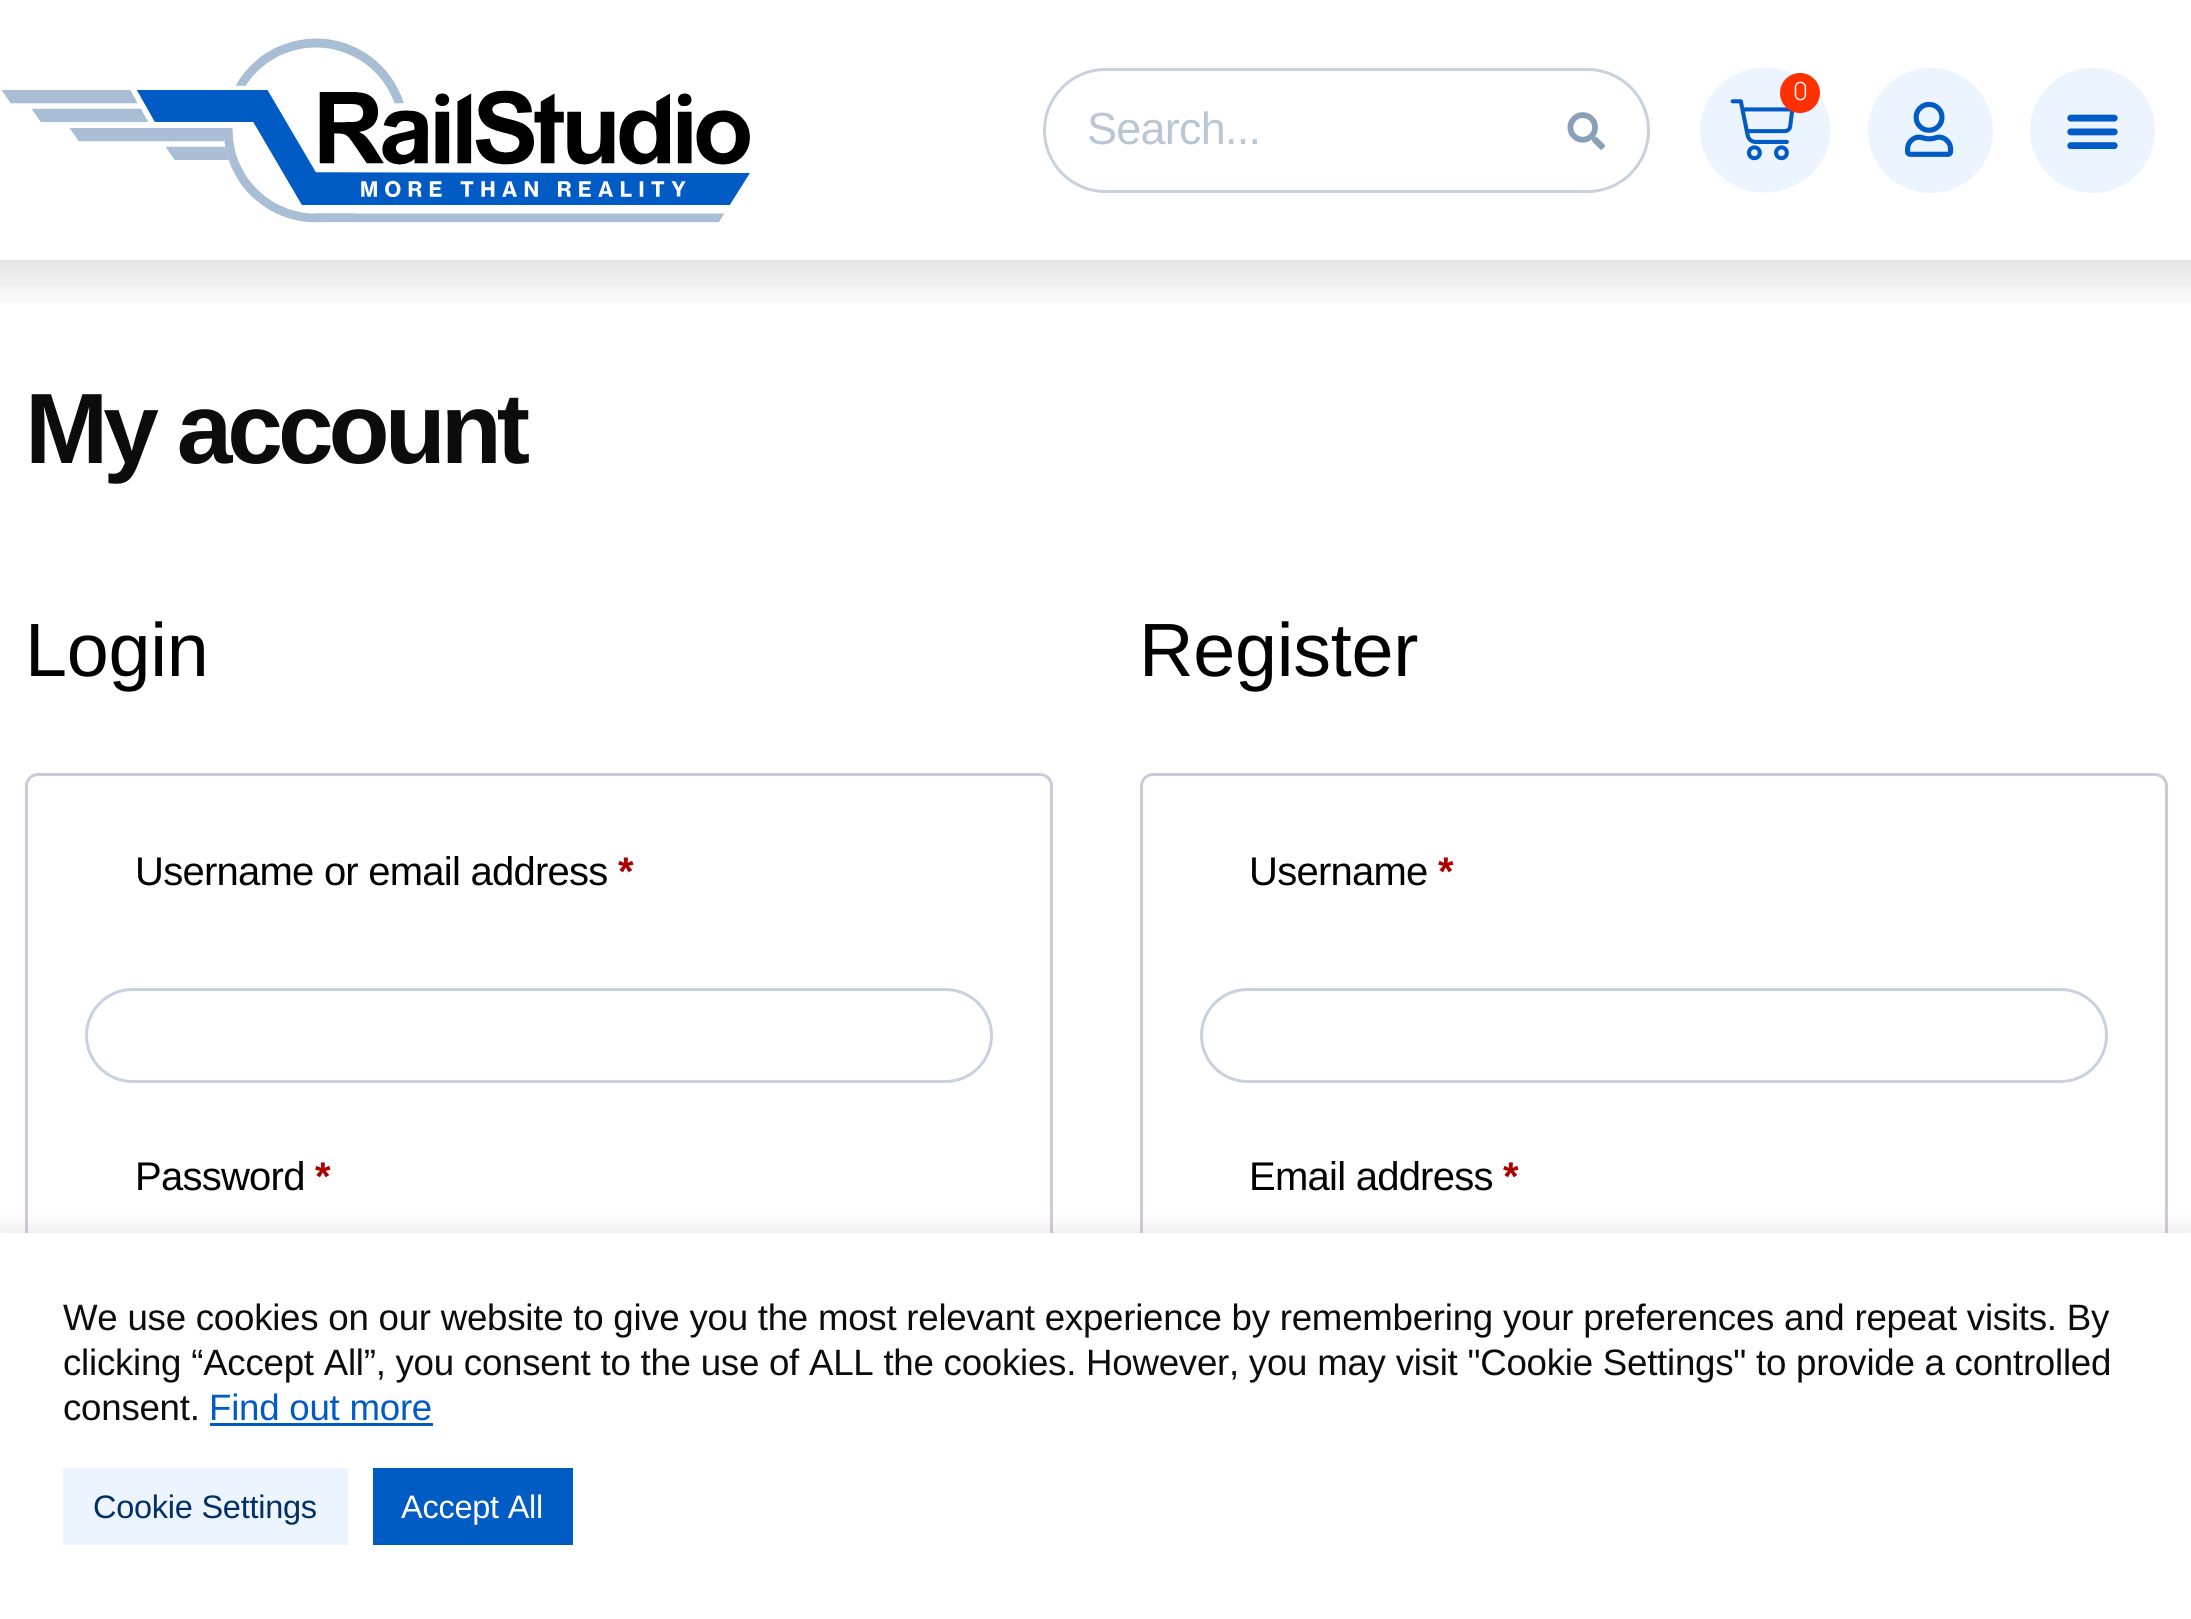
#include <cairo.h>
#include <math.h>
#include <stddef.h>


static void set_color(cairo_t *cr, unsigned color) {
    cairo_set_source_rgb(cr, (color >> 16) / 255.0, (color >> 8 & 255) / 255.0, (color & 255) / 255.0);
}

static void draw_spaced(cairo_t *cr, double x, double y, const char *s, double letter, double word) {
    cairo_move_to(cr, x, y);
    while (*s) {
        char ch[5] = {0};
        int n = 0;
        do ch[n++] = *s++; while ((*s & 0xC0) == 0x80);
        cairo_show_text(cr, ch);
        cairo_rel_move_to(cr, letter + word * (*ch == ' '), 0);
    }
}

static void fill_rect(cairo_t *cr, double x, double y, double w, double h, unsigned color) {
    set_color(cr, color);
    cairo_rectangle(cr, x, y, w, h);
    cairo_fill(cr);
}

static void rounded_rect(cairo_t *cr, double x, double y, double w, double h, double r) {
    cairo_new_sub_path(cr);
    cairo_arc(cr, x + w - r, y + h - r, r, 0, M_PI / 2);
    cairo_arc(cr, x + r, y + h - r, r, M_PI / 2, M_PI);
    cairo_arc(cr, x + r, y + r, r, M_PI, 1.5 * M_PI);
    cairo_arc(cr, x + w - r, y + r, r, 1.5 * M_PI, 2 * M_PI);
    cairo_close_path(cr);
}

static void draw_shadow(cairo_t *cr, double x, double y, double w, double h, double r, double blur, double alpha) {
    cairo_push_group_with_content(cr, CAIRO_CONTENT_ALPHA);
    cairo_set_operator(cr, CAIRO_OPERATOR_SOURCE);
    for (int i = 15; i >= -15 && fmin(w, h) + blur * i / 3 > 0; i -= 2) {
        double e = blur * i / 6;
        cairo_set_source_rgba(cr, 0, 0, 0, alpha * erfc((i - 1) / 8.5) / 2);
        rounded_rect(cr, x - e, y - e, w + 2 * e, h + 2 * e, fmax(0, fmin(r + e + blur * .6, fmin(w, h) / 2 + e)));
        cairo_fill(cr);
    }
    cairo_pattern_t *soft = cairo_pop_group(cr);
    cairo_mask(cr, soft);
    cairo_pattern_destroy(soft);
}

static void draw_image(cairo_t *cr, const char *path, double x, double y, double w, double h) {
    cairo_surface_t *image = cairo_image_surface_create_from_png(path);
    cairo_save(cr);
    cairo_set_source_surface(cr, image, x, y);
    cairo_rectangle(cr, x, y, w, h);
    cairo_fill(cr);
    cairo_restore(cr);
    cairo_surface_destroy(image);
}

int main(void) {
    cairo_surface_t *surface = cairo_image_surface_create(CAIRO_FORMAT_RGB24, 2191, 1619);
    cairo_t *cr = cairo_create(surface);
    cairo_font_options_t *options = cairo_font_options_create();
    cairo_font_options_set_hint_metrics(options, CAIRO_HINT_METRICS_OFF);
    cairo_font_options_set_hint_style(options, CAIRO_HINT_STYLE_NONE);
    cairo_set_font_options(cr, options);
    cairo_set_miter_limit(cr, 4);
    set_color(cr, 0xFFFFFF);
    cairo_paint(cr);
    cairo_save(cr);
    cairo_rectangle(cr, 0, 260, 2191, 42);
    cairo_clip(cr);
    set_color(cr, 0x000000);
    draw_shadow(cr, -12, -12, 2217, 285, 0, 25, 0.16);
    cairo_restore(cr);
    draw_image(cr, "assets/img1.png", 1, 38, 749, 185);
    set_color(cr, 0xEBF4FF);
    cairo_new_path(cr);
    cairo_move_to(cr, 1765, 67.5);
    cairo_curve_to(cr, 1801, 67.5, 1830, 95.5, 1830, 130);
    cairo_curve_to(cr, 1830, 164.5, 1801, 192.5, 1765, 192.5);
    cairo_curve_to(cr, 1729, 192.5, 1700, 164.5, 1700, 130);
    cairo_curve_to(cr, 1700, 95.5, 1729, 67.5, 1765, 67.5);
    cairo_close_path(cr);
    cairo_fill(cr);
    draw_image(cr, "assets/img2.png", 1730, 99, 64, 62);
    set_color(cr, 0xFF3100);
    cairo_arc(cr, 1800, 93, 20, 0, 2 * M_PI);
    cairo_fill(cr);
    cairo_select_font_face(cr, "Manrope Light", CAIRO_FONT_SLANT_NORMAL, CAIRO_FONT_WEIGHT_NORMAL);
    cairo_set_font_size(cr, 25);
    set_color(cr, 0xFFFFFF);
    draw_spaced(cr, 1793, 100, "0", -0.25, 0);
    set_color(cr, 0xEBF4FF);
    cairo_new_path(cr);
    cairo_arc(cr, 1930.5, 130.5, 62.5, 0, 2 * M_PI);
    cairo_fill(cr);
    draw_image(cr, "assets/img3.png", 1905, 101, 49, 56);
    cairo_arc(cr, 2092.5, 130.5, 62.5, 0, 2 * M_PI);
    cairo_fill(cr);
    draw_image(cr, "assets/img4.png", 2067, 114, 51, 36);
    rounded_rect(cr, 1044.5, 69.5, 604, 122, 61);
    set_color(cr, 0xC8D1DE);
    cairo_set_line_width(cr, 3);
    cairo_stroke(cr);
    cairo_select_font_face(cr, "Liberation Sans", CAIRO_FONT_SLANT_NORMAL, CAIRO_FONT_WEIGHT_NORMAL);
    cairo_set_font_size(cr, 45);
    set_color(cr, 0xB9C6D4);
    draw_spaced(cr, 1087, 144, "Search...", -0.75, 0);
    draw_image(cr, "assets/img5.png", 1567, 112, 38, 38);
    cairo_select_font_face(cr, "Liberation Sans", CAIRO_FONT_SLANT_NORMAL, CAIRO_FONT_WEIGHT_BOLD);
    cairo_set_font_size(cr, 100);
    set_color(cr, 0x0C0C0C);
    draw_spaced(cr, 25, 463, "My account", -5, 0);
    cairo_select_font_face(cr, "Liberation Sans", CAIRO_FONT_SLANT_NORMAL, CAIRO_FONT_WEIGHT_NORMAL);
    cairo_set_font_size(cr, 75.5);
    set_color(cr, 0x000000);
    draw_spaced(cr, 25, 676, "Login", -0.25, 0);
    rounded_rect(cr, 26.5, 774.5, 1025, 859, 11.5);
    set_color(cr, 0xCFC8D8);
    cairo_stroke(cr);
    cairo_set_font_size(cr, 40);
    set_color(cr, 0x000000);
    draw_spaced(cr, 135, 885, "Username or email address", -0.75, 0);
    cairo_select_font_face(cr, "Liberation Sans", CAIRO_FONT_SLANT_NORMAL, CAIRO_FONT_WEIGHT_BOLD);
    set_color(cr, 0xAA0000);
    draw_spaced(cr, 618, 885, "*", -0.75, 0);
    rounded_rect(cr, 86.5, 989.5, 905, 92, 46);
    set_color(cr, 0xC8D1DE);
    cairo_stroke(cr);
    cairo_select_font_face(cr, "Liberation Sans", CAIRO_FONT_SLANT_NORMAL, CAIRO_FONT_WEIGHT_NORMAL);
    set_color(cr, 0x000000);
    draw_spaced(cr, 135, 1190, "Password", -0.75, 0);
    cairo_select_font_face(cr, "Liberation Sans", CAIRO_FONT_SLANT_NORMAL, CAIRO_FONT_WEIGHT_BOLD);
    set_color(cr, 0xAA0000);
    draw_spaced(cr, 315, 1190, "*", -0.75, 0);
    cairo_select_font_face(cr, "Liberation Sans", CAIRO_FONT_SLANT_NORMAL, CAIRO_FONT_WEIGHT_NORMAL);
    cairo_set_font_size(cr, 75.5);
    set_color(cr, 0x000000);
    draw_spaced(cr, 1139, 676, "Register", -0.25, 0);
    rounded_rect(cr, 1141.5, 774.5, 1025, 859, 11.5);
    set_color(cr, 0xCFC8D8);
    cairo_stroke(cr);
    cairo_set_font_size(cr, 40);
    set_color(cr, 0x000000);
    draw_spaced(cr, 1249, 885, "Username", -0.75, 0);
    cairo_select_font_face(cr, "Liberation Sans", CAIRO_FONT_SLANT_NORMAL, CAIRO_FONT_WEIGHT_BOLD);
    set_color(cr, 0xAA0000);
    draw_spaced(cr, 1438, 885, "*", -0.75, 0);
    rounded_rect(cr, 1201.5, 989.5, 905, 92, 46);
    set_color(cr, 0xC8D1DE);
    cairo_stroke(cr);
    cairo_select_font_face(cr, "Liberation Sans", CAIRO_FONT_SLANT_NORMAL, CAIRO_FONT_WEIGHT_NORMAL);
    set_color(cr, 0x000000);
    draw_spaced(cr, 1249, 1190, "Email address", -0.75, 0);
    cairo_select_font_face(cr, "Liberation Sans", CAIRO_FONT_SLANT_NORMAL, CAIRO_FONT_WEIGHT_BOLD);
    set_color(cr, 0xAA0000);
    draw_spaced(cr, 1503, 1190, "*", -0.75, 0);
    set_color(cr, 0xACABAB);
    draw_shadow(cr, 0, 1230, 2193, 388, 0, 12.5, 0.3);
    fill_rect(cr, 0, 1233, 2191, 386, 0xFFFFFF);
    cairo_select_font_face(cr, "Liberation Sans", CAIRO_FONT_SLANT_NORMAL, CAIRO_FONT_WEIGHT_NORMAL);
    cairo_set_font_size(cr, 36.67);
    set_color(cr, 0x0C0C0C);
    draw_spaced(cr, 63, 1330, "We use cookies on our website to give you the most relevant experience by remembering your preferences and repeat visits. By", -0.25, 0);
    draw_spaced(cr, 63, 1375, "clicking “Accept All”, you consent to the use of ALL the cookies. However, you may visit \"Cookie Settings\" to provide a controlled", -0.25, 0);
    draw_spaced(cr, 63, 1420, "consent.", -0.25, 0);
    set_color(cr, 0x005BC4);
    draw_spaced(cr, 209, 1420, "Find out more", -0.25, 0);
    fill_rect(cr, 210, 1423, 223, 3, 0x005BC4);
    fill_rect(cr, 63, 1468, 285, 77, 0xEBF4FF);
    cairo_set_font_size(cr, 32.5);
    set_color(cr, 0x003067);
    draw_spaced(cr, 93, 1518, "Cookie Settings", -0.25, 0);
    fill_rect(cr, 373, 1468, 200, 77, 0x005BC4);
    set_color(cr, 0xFFFFFF);
    draw_spaced(cr, 401, 1518, "Accept All", -0.25, 0);
    cairo_surface_write_to_png(surface, "output.png");
    cairo_font_options_destroy(options);
    cairo_destroy(cr);
    cairo_surface_destroy(surface);
    return 0;
}
